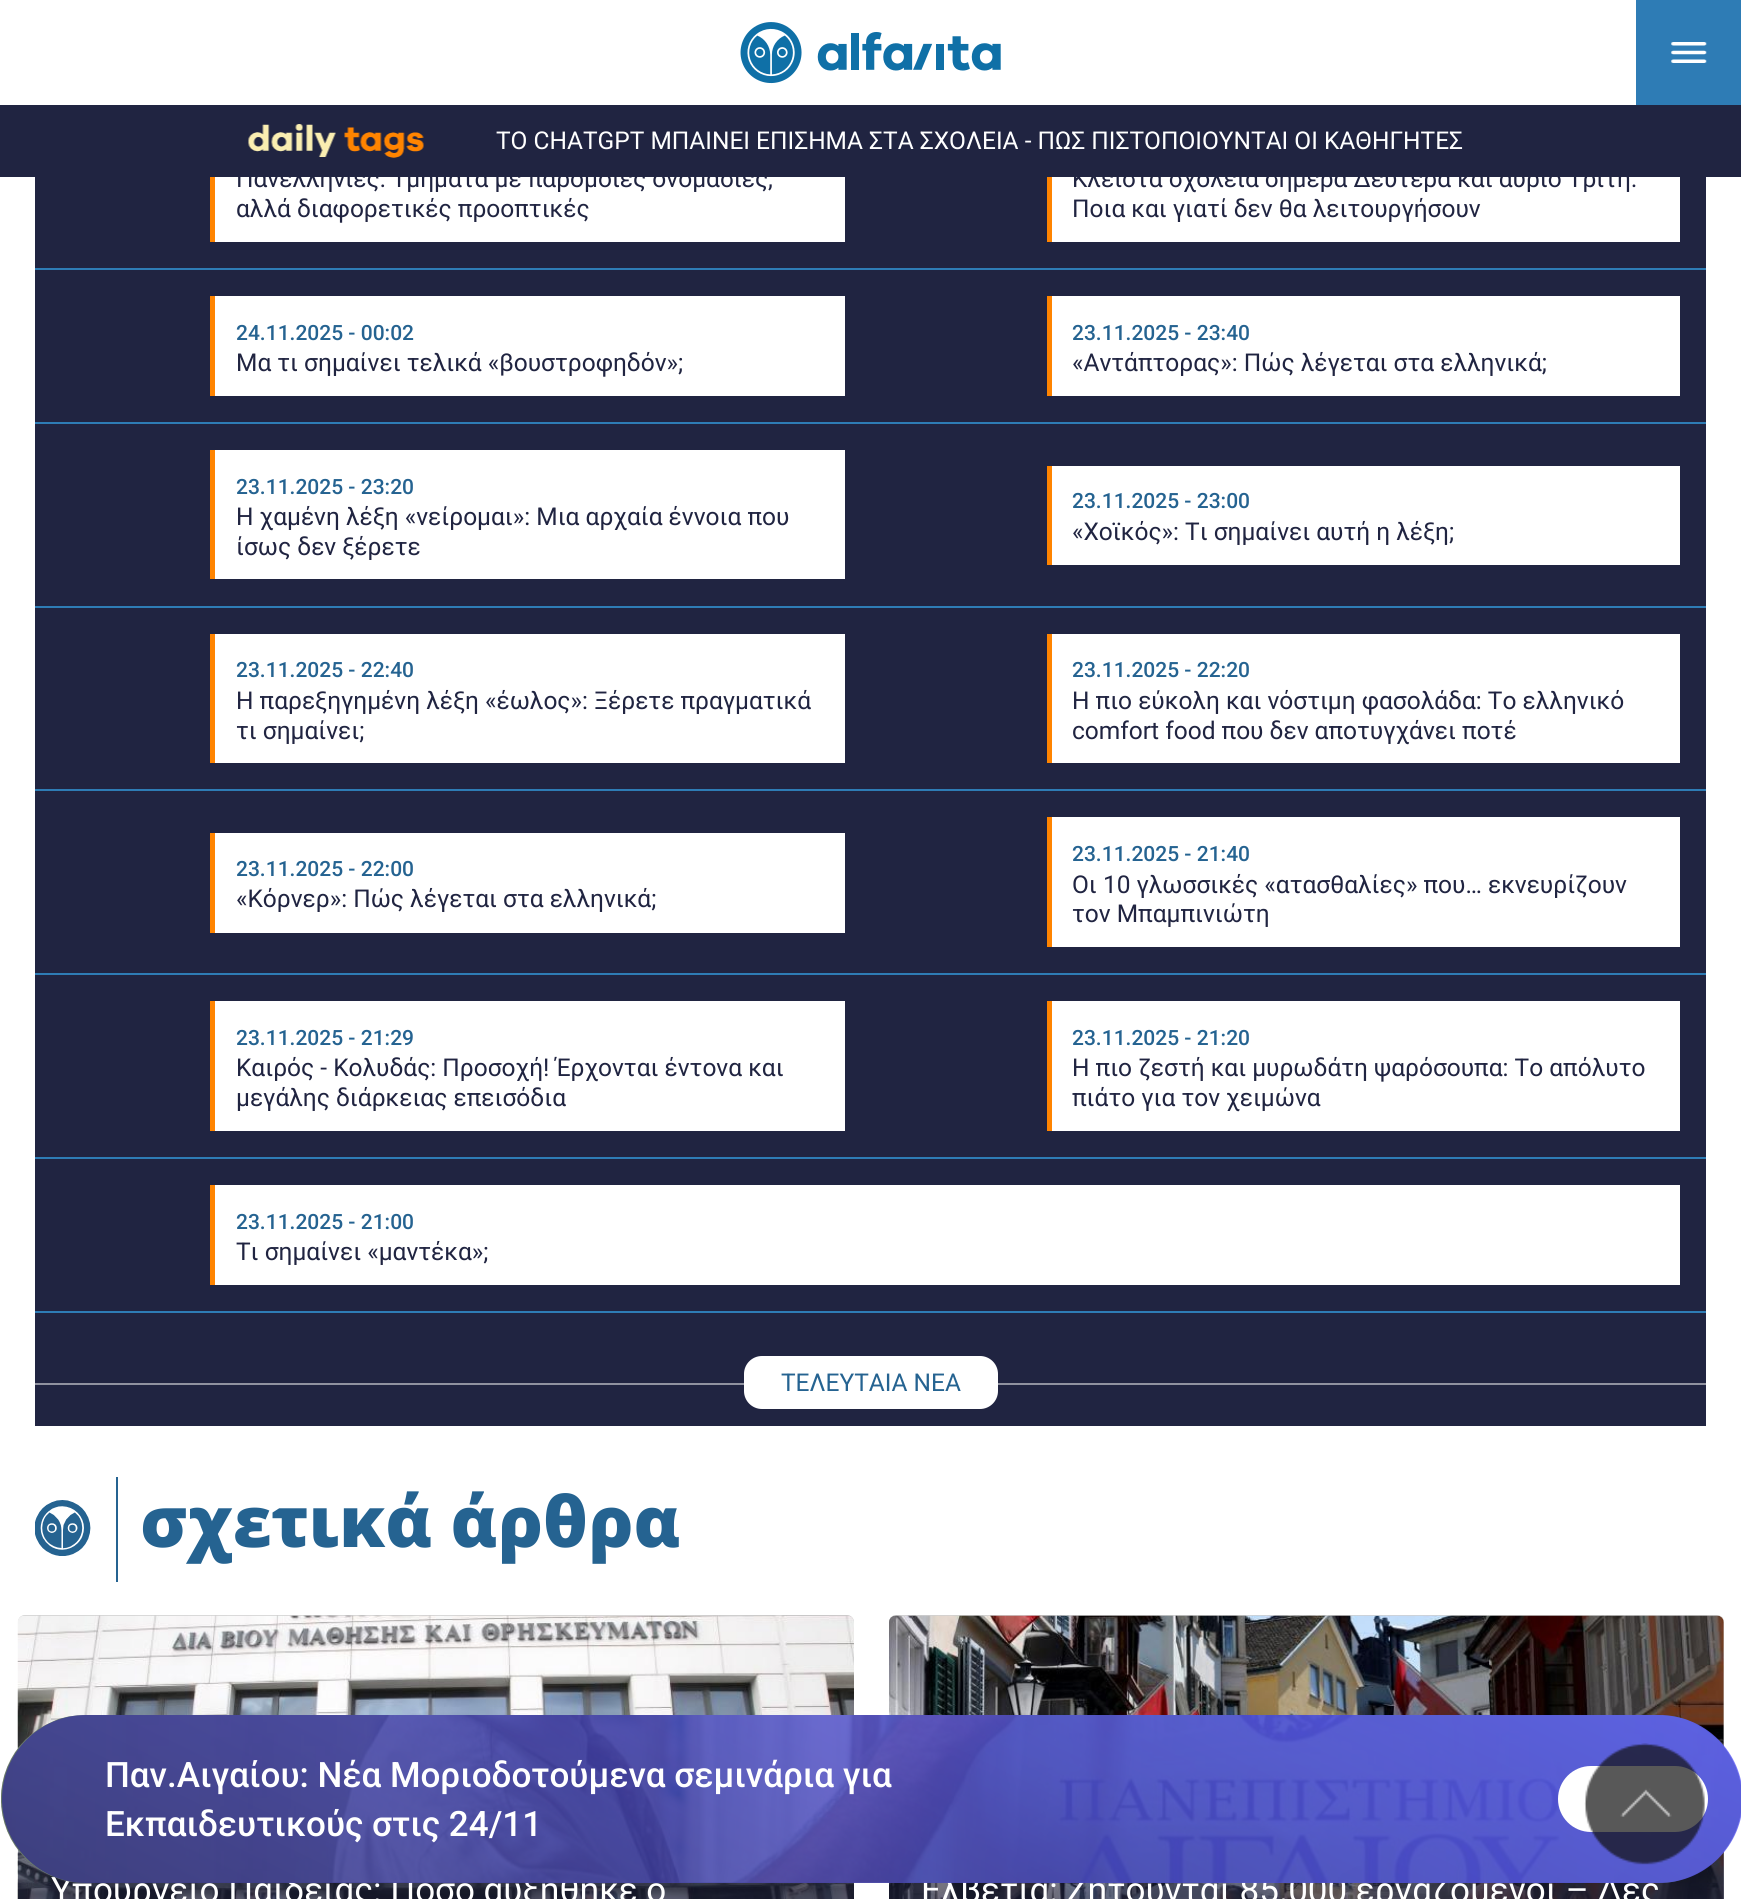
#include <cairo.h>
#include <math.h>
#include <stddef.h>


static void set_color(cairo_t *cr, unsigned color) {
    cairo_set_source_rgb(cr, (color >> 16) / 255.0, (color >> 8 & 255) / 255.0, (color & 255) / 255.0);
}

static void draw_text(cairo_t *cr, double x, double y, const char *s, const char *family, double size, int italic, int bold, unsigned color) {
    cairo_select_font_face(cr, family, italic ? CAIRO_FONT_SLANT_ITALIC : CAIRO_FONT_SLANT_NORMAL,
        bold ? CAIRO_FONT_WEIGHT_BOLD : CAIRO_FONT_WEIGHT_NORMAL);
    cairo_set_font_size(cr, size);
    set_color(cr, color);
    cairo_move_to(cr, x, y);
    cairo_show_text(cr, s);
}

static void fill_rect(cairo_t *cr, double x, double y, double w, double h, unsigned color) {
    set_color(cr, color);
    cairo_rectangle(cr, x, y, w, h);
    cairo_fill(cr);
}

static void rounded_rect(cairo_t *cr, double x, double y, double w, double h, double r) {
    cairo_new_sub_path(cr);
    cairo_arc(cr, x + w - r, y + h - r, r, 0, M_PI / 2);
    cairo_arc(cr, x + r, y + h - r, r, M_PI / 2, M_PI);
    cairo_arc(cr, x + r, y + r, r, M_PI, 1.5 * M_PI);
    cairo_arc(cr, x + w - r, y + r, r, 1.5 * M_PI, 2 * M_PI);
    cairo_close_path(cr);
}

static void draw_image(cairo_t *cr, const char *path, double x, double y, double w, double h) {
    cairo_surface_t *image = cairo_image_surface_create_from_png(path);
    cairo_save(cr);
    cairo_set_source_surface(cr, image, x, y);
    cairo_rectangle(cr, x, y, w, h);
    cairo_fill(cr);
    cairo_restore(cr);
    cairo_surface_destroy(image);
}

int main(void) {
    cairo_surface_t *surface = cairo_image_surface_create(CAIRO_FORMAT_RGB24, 1741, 1899);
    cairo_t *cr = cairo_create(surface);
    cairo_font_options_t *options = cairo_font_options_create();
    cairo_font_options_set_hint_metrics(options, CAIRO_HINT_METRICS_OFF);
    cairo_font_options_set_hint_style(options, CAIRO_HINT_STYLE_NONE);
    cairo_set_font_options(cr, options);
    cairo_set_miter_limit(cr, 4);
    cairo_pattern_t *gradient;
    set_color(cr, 0xFFFFFF);
    cairo_paint(cr);
    draw_image(cr, "assets/img1.png", 740, 22, 261, 62);
    fill_rect(cr, 1636, 0, 105, 105, 0x2E7CB5);
    draw_image(cr, "assets/img2.png", 1671, 42, 36, 21);
    fill_rect(cr, 0, 105, 1741, 72, 0x202441);
    draw_image(cr, "assets/img3.png", 248, 124, 176, 34);
    draw_text(cr, 496, 149, "ΤΟ CHATGPT ΜΠΑΙΝΕΙ ΕΠΙΣΗΜΑ ΣΤΑ ΣΧΟΛΕΙΑ - ΠΩΣ ΠΙΣΤΟΠΟΙΟΥΝΤΑΙ ΟΙ ΚΑΘΗΓΗΤΕΣ", "Roboto", 24.5, 0, 0, 0xFFFFFF);
    fill_rect(cr, 35, 177, 1671, 1249, 0x202441);
    fill_rect(cr, 35, 268, 1671, 2, 0x2E7CB5);
    fill_rect(cr, 215, 177, 630, 65, 0xFFFFFF);
    fill_rect(cr, 210, 177, 5, 65, 0xFF8400);
    draw_text(cr, 236, 187, "Πανελλήνιες: Τμήματα με παρόμοιες ονομασίες,", "Roboto", 24.5, 0, 0, 0x202441);
    draw_text(cr, 236, 217, "αλλά διαφορετικές προοπτικές", "Roboto", 24.5, 0, 0, 0x202441);
    fill_rect(cr, 1052, 177, 628, 65, 0xFFFFFF);
    fill_rect(cr, 1047, 177, 5, 65, 0xFF8400);
    draw_text(cr, 1072, 187, "Κλειστά σχολεία σήμερα Δευτέρα και αύριο Τρίτη:", "Roboto", 24.5, 0, 0, 0x202441);
    draw_text(cr, 1072, 217, "Ποια και γιατί δεν θα λειτουργήσουν", "Roboto", 24.5, 0, 0, 0x202441);
    fill_rect(cr, 35, 422, 1671, 2, 0x2E7CB5);
    fill_rect(cr, 215, 296, 630, 100, 0xFFFFFF);
    fill_rect(cr, 210, 296, 5, 100, 0xFF8400);
    draw_text(cr, 236, 340, "24.11.2025 - 00:02", "Roboto Medium", 21, 0, 0, 0x256391);
    draw_text(cr, 236, 371, "Μα τι σημαίνει τελικά «βουστροφηδόν»;", "Roboto", 24.5, 0, 0, 0x202441);
    fill_rect(cr, 1052, 296, 628, 100, 0xFFFFFF);
    fill_rect(cr, 1047, 296, 5, 100, 0xFF8400);
    draw_text(cr, 1072, 340, "23.11.2025 - 23:40", "Roboto Medium", 21, 0, 0, 0x256391);
    draw_text(cr, 1072, 371, "«Αντάπτορας»: Πώς λέγεται στα ελληνικά;", "Roboto", 24.5, 0, 0, 0x202441);
    fill_rect(cr, 35, 606, 1671, 2, 0x2E7CB5);
    fill_rect(cr, 215, 450, 630, 129, 0xFFFFFF);
    fill_rect(cr, 210, 450, 5, 129, 0xFF8400);
    draw_text(cr, 236, 494, "23.11.2025 - 23:20", "Roboto Medium", 21, 0, 0, 0x256391);
    draw_text(cr, 236, 525, "Η χαμένη λέξη «νείρομαι»: Μια αρχαία έννοια που", "Roboto", 24.5, 0, 0, 0x202441);
    draw_text(cr, 236, 555, "ίσως δεν ξέρετε", "Roboto", 24.5, 0, 0, 0x202441);
    fill_rect(cr, 1052, 466, 628, 99, 0xFFFFFF);
    fill_rect(cr, 1047, 466, 5, 99, 0xFF8400);
    draw_text(cr, 1072, 508, "23.11.2025 - 23:00", "Roboto Medium", 21, 0, 0, 0x256391);
    draw_text(cr, 1072, 540, "«Χοϊκός»: Τι σημαίνει αυτή η λέξη;", "Roboto", 24.5, 0, 0, 0x202441);
    fill_rect(cr, 35, 789, 1671, 2, 0x2E7CB5);
    fill_rect(cr, 215, 634, 630, 129, 0xFFFFFF);
    fill_rect(cr, 210, 634, 5, 129, 0xFF8400);
    draw_text(cr, 236, 677, "23.11.2025 - 22:40", "Roboto Medium", 21, 0, 0, 0x256391);
    draw_text(cr, 236, 709, "Η παρεξηγημένη λέξη «έωλος»: Ξέρετε πραγματικά", "Roboto", 24.5, 0, 0, 0x202441);
    draw_text(cr, 236, 739, "τι σημαίνει;", "Roboto", 24.5, 0, 0, 0x202441);
    fill_rect(cr, 1052, 634, 628, 129, 0xFFFFFF);
    fill_rect(cr, 1047, 634, 5, 129, 0xFF8400);
    draw_text(cr, 1072, 677, "23.11.2025 - 22:20", "Roboto Medium", 21, 0, 0, 0x256391);
    draw_text(cr, 1072, 709, "Η πιο εύκολη και νόστιμη φασολάδα: Το ελληνικό", "Roboto", 24.5, 0, 0, 0x202441);
    draw_text(cr, 1072, 739, "comfort food που δεν αποτυγχάνει ποτέ", "Roboto", 24.5, 0, 0, 0x202441);
    fill_rect(cr, 35, 973, 1671, 2, 0x2E7CB5);
    fill_rect(cr, 215, 833, 630, 100, 0xFFFFFF);
    fill_rect(cr, 210, 833, 5, 100, 0xFF8400);
    draw_text(cr, 236, 876, "23.11.2025 - 22:00", "Roboto Medium", 21, 0, 0, 0x256391);
    draw_text(cr, 236, 907, "«Κόρνερ»: Πώς λέγεται στα ελληνικά;", "Roboto", 24.5, 0, 0, 0x202441);
    fill_rect(cr, 1052, 817, 628, 130, 0xFFFFFF);
    fill_rect(cr, 1047, 817, 5, 130, 0xFF8400);
    draw_text(cr, 1072, 861, "23.11.2025 - 21:40", "Roboto Medium", 21, 0, 0, 0x256391);
    draw_text(cr, 1072, 893, "Οι 10 γλωσσικές «ατασθαλίες» που… εκνευρίζουν", "Roboto", 24.5, 0, 0, 0x202441);
    draw_text(cr, 1072, 922, "τον Μπαμπινιώτη", "Roboto", 24.5, 0, 0, 0x202441);
    fill_rect(cr, 35, 1157, 1671, 2, 0x2E7CB5);
    fill_rect(cr, 215, 1001, 630, 130, 0xFFFFFF);
    fill_rect(cr, 210, 1001, 5, 130, 0xFF8400);
    draw_text(cr, 236, 1045, "23.11.2025 - 21:29", "Roboto Medium", 21, 0, 0, 0x256391);
    draw_text(cr, 236, 1076, "Καιρός - Κολυδάς: Προσοχή! Έρχονται έντονα και", "Roboto", 24.5, 0, 0, 0x202441);
    draw_text(cr, 236, 1106, "μεγάλης διάρκειας επεισόδια", "Roboto", 24.5, 0, 0, 0x202441);
    fill_rect(cr, 1052, 1001, 628, 130, 0xFFFFFF);
    fill_rect(cr, 1047, 1001, 5, 130, 0xFF8400);
    draw_text(cr, 1072, 1045, "23.11.2025 - 21:20", "Roboto Medium", 21, 0, 0, 0x256391);
    draw_text(cr, 1072, 1076, "Η πιο ζεστή και μυρωδάτη ψαρόσουπα: Το απόλυτο", "Roboto", 24.5, 0, 0, 0x202441);
    draw_text(cr, 1072, 1106, "πιάτο για τον χειμώνα", "Roboto", 24.5, 0, 0, 0x202441);
    fill_rect(cr, 35, 1311, 1671, 2, 0x2E7CB5);
    fill_rect(cr, 215, 1185, 1465, 100, 0xFFFFFF);
    fill_rect(cr, 210, 1185, 5, 100, 0xFF8400);
    draw_text(cr, 236, 1229, "23.11.2025 - 21:00", "Roboto Medium", 21, 0, 0, 0x256391);
    draw_text(cr, 236, 1260, "Τι σημαίνει «μαντέκα»;", "Roboto", 24.5, 0, 0, 0x202441);
    fill_rect(cr, 35, 1383, 1671, 2, 0x9092A0);
    set_color(cr, 0xFFFFFF);
    rounded_rect(cr, 745, 1357, 252, 51, 17);
    cairo_fill_preserve(cr);
    cairo_stroke(cr);
    draw_text(cr, 781, 1391, "ΤΕΛΕΥΤΑΙΑ ΝΕΑ", "Roboto", 24.5, 0, 0, 0x256391);
    draw_image(cr, "assets/img4.png", 35, 1500, 56, 56);
    fill_rect(cr, 116, 1477, 2, 105, 0x256391);
    draw_text(cr, 140, 1547, "σχετικά άρθρα", "Open Sans ExtraBold", 70, 0, 0, 0x256391);
    rounded_rect(cr, 19, 1616, 834, 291, 6);
    set_color(cr, 0xCFCFCF);
    cairo_stroke(cr);
    draw_image(cr, "assets/img5.png", 17, 1615, 837, 284);
    draw_text(cr, 51, 1902, "Υπουργείο Παιδείας: Πόσο αυξήθηκε ο", "Roboto", 35, 0, 0, 0xFFFFFF);
    rounded_rect(cr, 890, 1616, 833, 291, 6);
    set_color(cr, 0xCFCFCF);
    cairo_stroke(cr);
    draw_image(cr, "assets/img6.png", 889, 1615, 835, 284);
    gradient = cairo_pattern_create_linear(1306, 1726, 1306, 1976);
    cairo_pattern_add_color_stop_rgba(gradient, 0, 0.125, 0.141, 0.255, 0);
    cairo_pattern_add_color_stop_rgba(gradient, 1, 0.125, 0.141, 0.255, 0.9);
    cairo_set_source(cr, gradient);
    cairo_pattern_destroy(gradient);
    cairo_rectangle(cr, 889, 1732, 835, 167);
    cairo_fill(cr);
    draw_text(cr, 921, 1902, "Ελβετία: Ζητούνται 85.000 εργαζόμενοι – Δες", "Roboto", 35, 0, 0, 0xFFFFFF);
    draw_image(cr, "assets/img7.png", 1, 1715, 1740, 168);
    gradient = cairo_pattern_create_linear(1072, 1388, 671, 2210);
    cairo_pattern_add_color_stop_rgba(gradient, 0, 0.396, 0.388, 1, 0.83);
    cairo_pattern_add_color_stop_rgba(gradient, 1, 0.2, 0.196, 0.502, 0.83);
    cairo_set_source(cr, gradient);
    cairo_pattern_destroy(gradient);
    rounded_rect(cr, 2, 1715, 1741, 168, 84);
    cairo_fill(cr);
    draw_text(cr, 105, 1787, "Παν.Αιγαίου: Νέα Μοριοδοτούμενα σεμινάρια για", "Roboto Medium", 35, 0, 0, 0xFFFFFF);
    draw_text(cr, 105, 1836, "Εκπαιδευτικούς στις 24/11", "Roboto Medium", 35, 0, 0, 0xFFFFFF);
    rounded_rect(cr, 1558, 1766, 150, 66, 33);
    cairo_fill(cr);
    draw_image(cr, "assets/img8.png", 1584, 1743, 121, 122);
    cairo_surface_write_to_png(surface, "output.png");
    cairo_font_options_destroy(options);
    cairo_destroy(cr);
    cairo_surface_destroy(surface);
    return 0;
}
